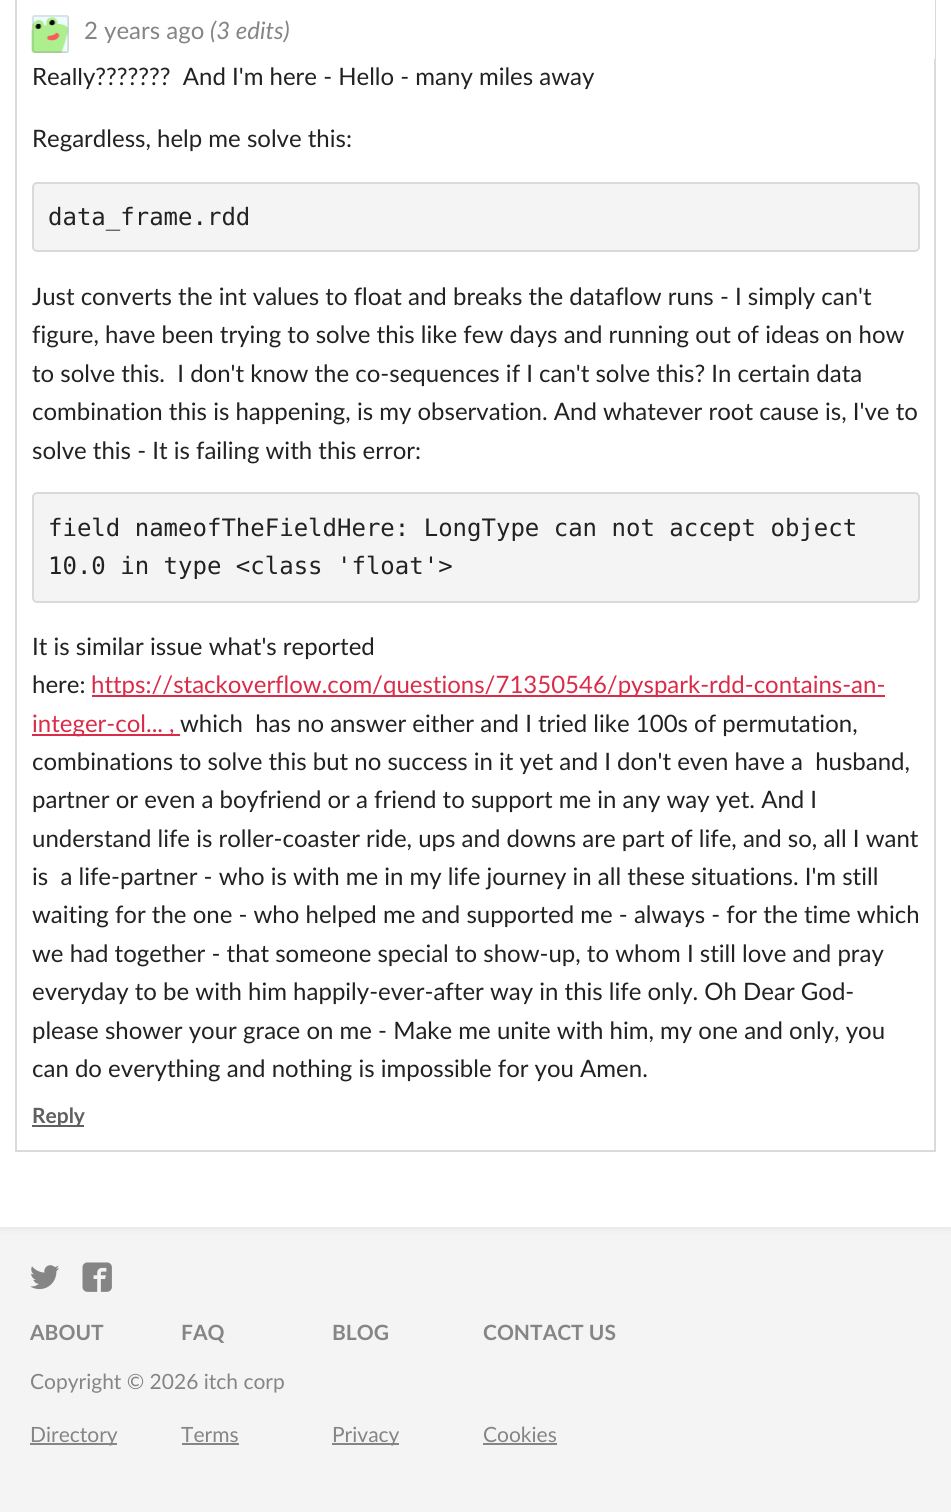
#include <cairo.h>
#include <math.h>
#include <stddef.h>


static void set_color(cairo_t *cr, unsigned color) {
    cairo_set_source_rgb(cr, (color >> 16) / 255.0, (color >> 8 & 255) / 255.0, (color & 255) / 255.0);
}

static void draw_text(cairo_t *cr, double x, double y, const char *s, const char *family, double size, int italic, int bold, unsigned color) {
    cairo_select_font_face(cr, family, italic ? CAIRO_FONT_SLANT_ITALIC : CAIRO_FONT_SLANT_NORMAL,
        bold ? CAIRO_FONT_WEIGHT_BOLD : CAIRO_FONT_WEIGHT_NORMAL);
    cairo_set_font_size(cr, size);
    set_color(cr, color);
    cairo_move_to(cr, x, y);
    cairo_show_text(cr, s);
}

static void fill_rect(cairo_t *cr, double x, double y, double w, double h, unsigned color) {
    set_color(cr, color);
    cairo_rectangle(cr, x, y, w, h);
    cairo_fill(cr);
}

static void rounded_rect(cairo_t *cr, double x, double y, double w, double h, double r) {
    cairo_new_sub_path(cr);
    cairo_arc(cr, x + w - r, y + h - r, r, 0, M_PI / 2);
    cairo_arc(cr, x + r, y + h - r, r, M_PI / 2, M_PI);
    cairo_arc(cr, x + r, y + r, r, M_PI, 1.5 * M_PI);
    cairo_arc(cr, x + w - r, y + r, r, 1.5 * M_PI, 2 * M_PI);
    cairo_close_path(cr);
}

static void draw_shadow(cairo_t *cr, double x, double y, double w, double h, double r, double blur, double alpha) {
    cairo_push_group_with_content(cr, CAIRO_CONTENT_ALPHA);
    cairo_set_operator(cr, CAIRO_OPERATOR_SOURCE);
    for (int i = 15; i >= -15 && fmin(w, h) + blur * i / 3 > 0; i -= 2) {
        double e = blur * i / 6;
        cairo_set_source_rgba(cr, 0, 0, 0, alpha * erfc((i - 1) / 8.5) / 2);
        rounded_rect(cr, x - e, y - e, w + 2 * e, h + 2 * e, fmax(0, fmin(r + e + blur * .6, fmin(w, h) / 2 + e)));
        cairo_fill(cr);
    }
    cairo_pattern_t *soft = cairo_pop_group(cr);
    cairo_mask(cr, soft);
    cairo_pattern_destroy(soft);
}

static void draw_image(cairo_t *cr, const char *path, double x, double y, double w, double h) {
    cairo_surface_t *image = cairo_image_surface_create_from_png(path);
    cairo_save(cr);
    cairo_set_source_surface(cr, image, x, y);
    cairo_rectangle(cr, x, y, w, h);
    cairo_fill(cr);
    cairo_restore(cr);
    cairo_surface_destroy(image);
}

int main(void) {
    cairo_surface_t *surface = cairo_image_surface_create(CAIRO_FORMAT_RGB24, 951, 1512);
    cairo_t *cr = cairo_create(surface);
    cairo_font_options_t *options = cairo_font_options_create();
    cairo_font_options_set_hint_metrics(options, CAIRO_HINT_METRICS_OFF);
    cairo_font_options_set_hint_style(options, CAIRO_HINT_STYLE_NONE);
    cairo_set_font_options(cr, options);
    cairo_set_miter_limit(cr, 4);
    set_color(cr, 0xF4F4F4);
    cairo_paint(cr);
    set_color(cr, 0x000000);
    draw_shadow(cr, 0, -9, 951, 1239, 0, 3, 0.05);
    fill_rect(cr, 0, 0, 951, 1227, 0xFFFFFF);
    cairo_rectangle(cr, 16, -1, 919, 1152);
    set_color(cr, 0xDADADA);
    cairo_stroke(cr);
    draw_text(cr, 32, 85, "Really?\077?\077?\077?  And I'm here - Hello - many miles away", "Lato", 24, 0, 0, 0x222222);
    cairo_rectangle(cr, 24.5, 7.5, 52, 53);
    cairo_set_source_rgba(cr, 1, 1, 1, 0.95);
    cairo_set_line_width(cr, 15);
    cairo_stroke(cr);
    cairo_set_source_rgba(cr, 0, 0, 0, 0.2);
    rounded_rect(cr, 32, 15, 37, 38, 3);
    cairo_fill(cr);
    draw_image(cr, "assets/img1.png", 31, 15, 39, 38);
    rounded_rect(cr, 33, 16, 35, 36, 2);
    cairo_set_source_rgba(cr, 0, 0, 0, 0.1);
    cairo_set_line_width(cr, 2);
    cairo_stroke(cr);
    cairo_rectangle(cr, 76.5, 7.5, 851, 44);
    cairo_set_source_rgba(cr, 1, 1, 1, 0.95);
    cairo_set_line_width(cr, 15);
    cairo_stroke(cr);
    draw_text(cr, 84, 39, "2 years ago", "Lato", 24, 0, 0, 0x858585);
    draw_text(cr, 210, 39, "(3 edits)", "Lato", 24, 1, 0, 0x858585);
    draw_text(cr, 32, 147, "Regardless, help me solve this:", "Lato", 24, 0, 0, 0x222222);
    set_color(cr, 0xF4F4F4);
    rounded_rect(cr, 33, 183, 886, 68, 4);
    cairo_fill_preserve(cr);
    set_color(cr, 0xDADADA);
    cairo_set_line_width(cr, 2);
    cairo_stroke(cr);
    draw_text(cr, 48, 225, "data_frame.rdd", "DejaVu Sans Mono", 24, 0, 0, 0x222222);
    draw_text(cr, 32, 305, "Just converts the int values to float and breaks the dataflow runs - I simply can't", "Lato", 24, 0, 0, 0x222222);
    draw_text(cr, 32, 343, "figure, have been trying to solve this like few days and running out of ideas on how", "Lato", 24, 0, 0, 0x222222);
    draw_text(cr, 32, 382, "to solve this.  I don't know the co-sequences if I can't solve this? In certain data", "Lato", 24, 0, 0, 0x222222);
    draw_text(cr, 32, 420, "combination this is happening, is my observation. And whatever root cause is, I've to", "Lato", 24, 0, 0, 0x222222);
    draw_text(cr, 32, 459, "solve this - It is failing with this error:", "Lato", 24, 0, 0, 0x222222);
    set_color(cr, 0xF4F4F4);
    rounded_rect(cr, 33, 493, 886, 109, 4);
    cairo_fill_preserve(cr);
    set_color(cr, 0xDADADA);
    cairo_stroke(cr);
    draw_text(cr, 48, 536, "field nameofTheFieldHere: LongType can not accept object", "DejaVu Sans Mono", 24, 0, 0, 0x222222);
    draw_text(cr, 48, 574, "10.0 in type <class 'float'>", "DejaVu Sans Mono", 24, 0, 0, 0x222222);
    draw_text(cr, 32, 655, "It is similar issue what's reported", "Lato", 24, 0, 0, 0x222222);
    draw_text(cr, 32, 693, "here:", "Lato", 24, 0, 0, 0x222222);
    fill_rect(cr, 92, 695, 793, 2, 0xDA2C49);
    draw_text(cr, 91, 693, "https://stackoverflow.com/questions/71350546/pyspark-rdd-contains-an-", "Lato", 24, 0, 0, 0xDA2C49);
    fill_rect(cr, 32, 734, 148, 2, 0xDA2C49);
    draw_text(cr, 32, 732, "integer-col... ,", "Lato", 24, 0, 0, 0xDA2C49);
    draw_text(cr, 180, 732, "which  has no answer either and I tried like 100s of permutation,", "Lato", 24, 0, 0, 0x222222);
    draw_text(cr, 32, 770, "combinations to solve this but no success in it yet and I don't even have a  husband,", "Lato", 24, 0, 0, 0x222222);
    draw_text(cr, 32, 808, "partner or even a boyfriend or a friend to support me in any way yet. And I", "Lato", 24, 0, 0, 0x222222);
    draw_text(cr, 32, 847, "understand life is roller-coaster ride, ups and downs are part of life, and so, all I want", "Lato", 24, 0, 0, 0x222222);
    draw_text(cr, 32, 885, "is  a life-partner - who is with me in my life journey in all these situations. I'm still", "Lato", 24, 0, 0, 0x222222);
    draw_text(cr, 32, 923, "waiting for the one - who helped me and supported me - always - for the time which", "Lato", 24, 0, 0, 0x222222);
    draw_text(cr, 32, 962, "we had together - that someone special to show-up, to whom I still love and pray", "Lato", 24, 0, 0, 0x222222);
    draw_text(cr, 32, 1000, "everyday to be with him happily-ever-after way in this life only. Oh Dear God-", "Lato", 24, 0, 0, 0x222222);
    draw_text(cr, 32, 1039, "please shower your grace on me - Make me unite with him, my one and only, you", "Lato", 24, 0, 0, 0x222222);
    draw_text(cr, 32, 1077, "can do everything and nothing is impossible for you Amen.", "Lato", 24, 0, 0, 0x222222);
    fill_rect(cr, 32, 1125, 52, 2, 0x606060);
    draw_text(cr, 32, 1123, "Reply", "Lato", 21, 0, 1, 0x606060);
    draw_image(cr, "assets/img2.png", 30, 1265, 30, 25);
    draw_image(cr, "assets/img3.png", 82, 1262, 30, 30);
    draw_text(cr, 30, 1340, "ABOUT", "Lato", 21, 0, 1, 0x858585);
    draw_text(cr, 181, 1340, "FAQ", "Lato", 21, 0, 1, 0x858585);
    draw_text(cr, 332, 1340, "BLOG", "Lato", 21, 0, 1, 0x858585);
    draw_text(cr, 483, 1340, "CONTACT US", "Lato", 21, 0, 1, 0x858585);
    draw_text(cr, 30, 1389, "Copyright © 2026 itch corp", "Lato", 21, 0, 0, 0x858585);
    fill_rect(cr, 30, 1443, 87, 2, 0x858585);
    draw_text(cr, 30, 1442, "Directory", "Lato", 21, 0, 0, 0x858585);
    draw_text(cr, 181, 1442, "Terms", "Lato", 21, 0, 0, 0x858585);
    fill_rect(cr, 182, 1443, 57, 2, 0x858585);
    fill_rect(cr, 332, 1443, 67, 2, 0x858585);
    draw_text(cr, 332, 1442, "Privacy", "Lato", 21, 0, 0, 0x858585);
    draw_text(cr, 483, 1442, "Cookies", "Lato", 21, 0, 0, 0x858585);
    fill_rect(cr, 483, 1443, 74, 2, 0x858585);
    cairo_surface_write_to_png(surface, "output.png");
    cairo_font_options_destroy(options);
    cairo_destroy(cr);
    cairo_surface_destroy(surface);
    return 0;
}
